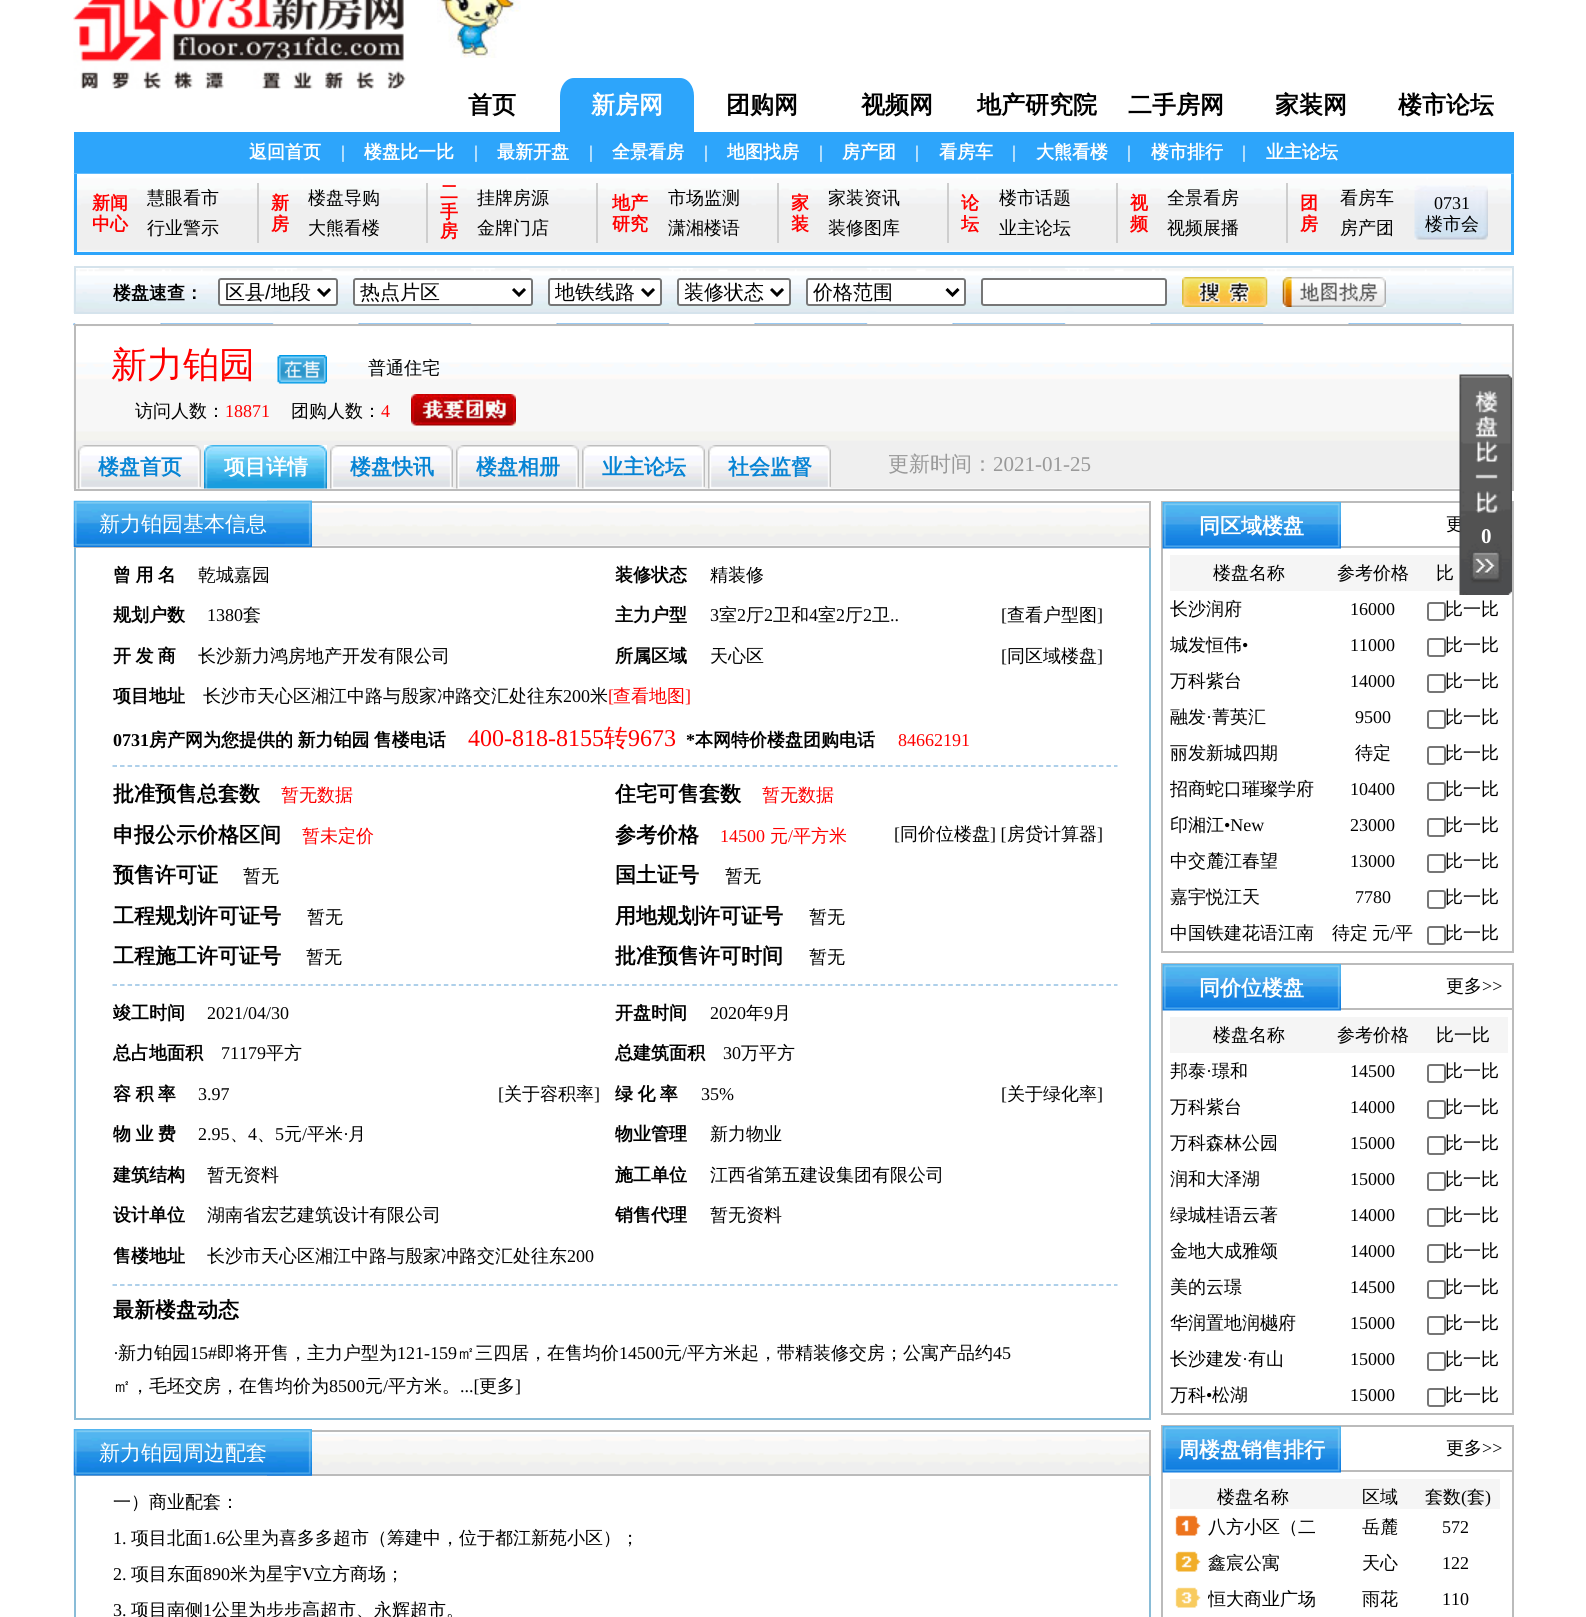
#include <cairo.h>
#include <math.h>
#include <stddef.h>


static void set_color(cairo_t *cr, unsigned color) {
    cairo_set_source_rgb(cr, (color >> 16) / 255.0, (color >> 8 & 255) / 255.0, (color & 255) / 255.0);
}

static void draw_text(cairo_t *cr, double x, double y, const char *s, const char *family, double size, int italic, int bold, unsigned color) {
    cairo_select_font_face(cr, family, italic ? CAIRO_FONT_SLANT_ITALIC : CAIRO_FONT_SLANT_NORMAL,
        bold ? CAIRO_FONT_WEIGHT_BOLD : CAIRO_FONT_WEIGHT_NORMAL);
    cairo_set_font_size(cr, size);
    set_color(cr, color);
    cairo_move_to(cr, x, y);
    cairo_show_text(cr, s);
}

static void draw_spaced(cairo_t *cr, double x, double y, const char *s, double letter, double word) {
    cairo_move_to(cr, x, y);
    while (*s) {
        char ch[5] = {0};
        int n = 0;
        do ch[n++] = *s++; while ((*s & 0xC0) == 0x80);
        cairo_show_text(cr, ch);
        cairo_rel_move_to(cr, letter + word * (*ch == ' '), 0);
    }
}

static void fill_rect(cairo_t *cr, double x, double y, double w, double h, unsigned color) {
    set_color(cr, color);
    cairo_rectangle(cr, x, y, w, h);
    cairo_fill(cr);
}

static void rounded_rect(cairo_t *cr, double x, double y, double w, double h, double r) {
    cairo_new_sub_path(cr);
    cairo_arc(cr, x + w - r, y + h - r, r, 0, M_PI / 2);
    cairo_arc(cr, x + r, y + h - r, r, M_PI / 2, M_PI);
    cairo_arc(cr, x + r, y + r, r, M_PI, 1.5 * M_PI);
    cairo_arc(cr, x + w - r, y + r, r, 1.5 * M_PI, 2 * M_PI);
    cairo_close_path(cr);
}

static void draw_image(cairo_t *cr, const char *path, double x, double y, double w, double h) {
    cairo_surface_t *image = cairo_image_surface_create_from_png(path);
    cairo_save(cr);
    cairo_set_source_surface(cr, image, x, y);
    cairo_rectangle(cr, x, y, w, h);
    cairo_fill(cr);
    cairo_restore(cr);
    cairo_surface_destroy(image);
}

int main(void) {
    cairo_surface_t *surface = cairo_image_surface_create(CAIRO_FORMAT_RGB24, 1586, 1617);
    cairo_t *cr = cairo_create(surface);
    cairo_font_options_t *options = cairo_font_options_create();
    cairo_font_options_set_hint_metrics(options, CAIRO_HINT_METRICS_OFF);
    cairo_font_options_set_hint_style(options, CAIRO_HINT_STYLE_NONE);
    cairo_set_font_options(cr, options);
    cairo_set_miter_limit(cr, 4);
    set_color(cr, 0xFFFFFF);
    cairo_paint(cr);
    draw_image(cr, "assets/img1.png", 73, 0, 333, 89);
    draw_image(cr, "assets/img2.png", 437, 0, 84, 58);
    draw_text(cr, 468, 113, "首页", "WenQuanYi Zen Hei", 24, 0, 1, 0x000000);
    set_color(cr, 0x2DA5FB);
    cairo_new_path(cr);
    cairo_move_to(cr, 574, 78);
    cairo_line_to(cr, 680, 78);
    cairo_curve_to(cr, 688, 78, 694, 86, 694, 96);
    cairo_line_to(cr, 694, 132);
    cairo_line_to(cr, 560, 132);
    cairo_line_to(cr, 560, 96);
    cairo_curve_to(cr, 560, 86, 566, 78, 574, 78);
    cairo_close_path(cr);
    cairo_fill(cr);
    draw_text(cr, 591, 113, "新房网", "WenQuanYi Zen Hei", 24, 0, 1, 0xFFFFFF);
    draw_text(cr, 726, 113, "团购网", "WenQuanYi Zen Hei", 24, 0, 1, 0x000000);
    draw_text(cr, 861, 113, "视频网", "WenQuanYi Zen Hei", 24, 0, 1, 0x000000);
    draw_text(cr, 977, 113, "地产研究院", "WenQuanYi Zen Hei", 24, 0, 1, 0x000000);
    draw_text(cr, 1128, 113, "二手房网", "WenQuanYi Zen Hei", 24, 0, 1, 0x000000);
    draw_text(cr, 1275, 113, "家装网", "WenQuanYi Zen Hei", 24, 0, 1, 0x000000);
    draw_text(cr, 1398, 113, "楼市论坛", "WenQuanYi Zen Hei", 24, 0, 1, 0x000000);
    fill_rect(cr, 77, 132, 1434, 39, 0x2DA5FB);
    fill_rect(cr, 1511, 132, 3, 42, 0x2DA5FB);
    fill_rect(cr, 74, 171, 1440, 3, 0x2DA5FB);
    fill_rect(cr, 74, 132, 3, 42, 0x2DA5FB);
    draw_text(cr, 249, 158, "返回首页", "WenQuanYi Zen Hei", 18, 0, 1, 0xFFFFFF);
    draw_text(cr, 341, 158, "|", "Liberation Serif", 18, 0, 1, 0xFFFFFF);
    draw_text(cr, 364, 158, "楼盘比一比", "WenQuanYi Zen Hei", 18, 0, 1, 0xFFFFFF);
    draw_text(cr, 474, 158, "|", "Liberation Serif", 18, 0, 1, 0xFFFFFF);
    draw_text(cr, 497, 158, "最新开盘", "WenQuanYi Zen Hei", 18, 0, 1, 0xFFFFFF);
    draw_text(cr, 589, 158, "|", "Liberation Serif", 18, 0, 1, 0xFFFFFF);
    draw_text(cr, 612, 158, "全景看房", "WenQuanYi Zen Hei", 18, 0, 1, 0xFFFFFF);
    draw_text(cr, 704, 158, "|", "Liberation Serif", 18, 0, 1, 0xFFFFFF);
    draw_text(cr, 727, 158, "地图找房", "WenQuanYi Zen Hei", 18, 0, 1, 0xFFFFFF);
    draw_text(cr, 819, 158, "|", "Liberation Serif", 18, 0, 1, 0xFFFFFF);
    draw_text(cr, 842, 158, "房产团", "WenQuanYi Zen Hei", 18, 0, 1, 0xFFFFFF);
    draw_text(cr, 915, 158, "|", "Liberation Serif", 18, 0, 1, 0xFFFFFF);
    draw_text(cr, 939, 158, "看房车", "WenQuanYi Zen Hei", 18, 0, 1, 0xFFFFFF);
    draw_text(cr, 1012, 158, "|", "Liberation Serif", 18, 0, 1, 0xFFFFFF);
    draw_text(cr, 1036, 158, "大熊看楼", "WenQuanYi Zen Hei", 18, 0, 1, 0xFFFFFF);
    draw_text(cr, 1127, 158, "|", "Liberation Serif", 18, 0, 1, 0xFFFFFF);
    draw_text(cr, 1151, 158, "楼市排行", "WenQuanYi Zen Hei", 18, 0, 1, 0xFFFFFF);
    draw_text(cr, 1242, 158, "|", "Liberation Serif", 18, 0, 1, 0xFFFFFF);
    draw_text(cr, 1266, 158, "业主论坛", "WenQuanYi Zen Hei", 18, 0, 1, 0xFFFFFF);
    draw_image(cr, "assets/img3.png", 73, 173, 1441, 82);
    fill_rect(cr, 1511, 174, 3, 81, 0x2DA5FB);
    fill_rect(cr, 74, 252, 1440, 3, 0x2DA5FB);
    fill_rect(cr, 74, 174, 3, 81, 0x2DA5FB);
    fill_rect(cr, 257, 183, 2, 60, 0xCECECE);
    draw_text(cr, 92, 209, "新闻", "WenQuanYi Zen Hei", 18, 0, 1, 0xFF0000);
    draw_text(cr, 92, 230, "中心", "WenQuanYi Zen Hei", 18, 0, 1, 0xFF0000);
    draw_text(cr, 147, 204, "慧眼看市", "WenQuanYi Zen Hei Medium", 18, 0, 0, 0x000000);
    draw_text(cr, 147, 234, "行业警示", "WenQuanYi Zen Hei Medium", 18, 0, 0, 0x000000);
    fill_rect(cr, 426, 183, 2, 60, 0xCECECE);
    draw_text(cr, 271, 209, "新", "WenQuanYi Zen Hei", 18, 0, 1, 0xFF0000);
    draw_text(cr, 271, 230, "房", "WenQuanYi Zen Hei", 18, 0, 1, 0xFF0000);
    draw_text(cr, 308, 204, "楼盘导购", "WenQuanYi Zen Hei Medium", 18, 0, 0, 0x000000);
    draw_text(cr, 308, 234, "大熊看楼", "WenQuanYi Zen Hei Medium", 18, 0, 0, 0x000000);
    fill_rect(cr, 596, 183, 2, 60, 0xCECECE);
    draw_text(cr, 440, 198, "二", "WenQuanYi Zen Hei", 18, 0, 1, 0xFF0000);
    draw_text(cr, 440, 218, "手", "WenQuanYi Zen Hei", 18, 0, 1, 0xFF0000);
    draw_text(cr, 440, 237, "房", "WenQuanYi Zen Hei", 18, 0, 1, 0xFF0000);
    draw_text(cr, 477, 204, "挂牌房源", "WenQuanYi Zen Hei Medium", 18, 0, 0, 0x000000);
    draw_text(cr, 477, 234, "金牌门店", "WenQuanYi Zen Hei Medium", 18, 0, 0, 0x000000);
    fill_rect(cr, 777, 183, 2, 60, 0xCECECE);
    draw_text(cr, 612, 209, "地产", "WenQuanYi Zen Hei", 18, 0, 1, 0xFF0000);
    draw_text(cr, 612, 230, "研究", "WenQuanYi Zen Hei", 18, 0, 1, 0xFF0000);
    draw_text(cr, 668, 204, "市场监测", "WenQuanYi Zen Hei Medium", 18, 0, 0, 0x000000);
    draw_text(cr, 668, 234, "潇湘楼语", "WenQuanYi Zen Hei Medium", 18, 0, 0, 0x000000);
    fill_rect(cr, 947, 183, 2, 60, 0xCECECE);
    draw_text(cr, 791, 209, "家", "WenQuanYi Zen Hei", 18, 0, 1, 0xFF0000);
    draw_text(cr, 791, 230, "装", "WenQuanYi Zen Hei", 18, 0, 1, 0xFF0000);
    draw_text(cr, 828, 204, "家装资讯", "WenQuanYi Zen Hei Medium", 18, 0, 0, 0x000000);
    draw_text(cr, 828, 234, "装修图库", "WenQuanYi Zen Hei Medium", 18, 0, 0, 0x000000);
    fill_rect(cr, 1116, 183, 2, 60, 0xCECECE);
    draw_text(cr, 961, 209, "论", "WenQuanYi Zen Hei", 18, 0, 1, 0xFF0000);
    draw_text(cr, 961, 230, "坛", "WenQuanYi Zen Hei", 18, 0, 1, 0xFF0000);
    draw_text(cr, 999, 204, "楼市话题", "WenQuanYi Zen Hei Medium", 18, 0, 0, 0x000000);
    draw_text(cr, 999, 234, "业主论坛", "WenQuanYi Zen Hei Medium", 18, 0, 0, 0x000000);
    fill_rect(cr, 1286, 183, 2, 60, 0xCECECE);
    draw_text(cr, 1130, 209, "视", "WenQuanYi Zen Hei", 18, 0, 1, 0xFF0000);
    draw_text(cr, 1130, 230, "频", "WenQuanYi Zen Hei", 18, 0, 1, 0xFF0000);
    draw_text(cr, 1167, 204, "全景看房", "WenQuanYi Zen Hei Medium", 18, 0, 0, 0x000000);
    draw_text(cr, 1167, 234, "视频展播", "WenQuanYi Zen Hei Medium", 18, 0, 0, 0x000000);
    draw_text(cr, 1300, 209, "团", "WenQuanYi Zen Hei", 18, 0, 1, 0xFF0000);
    draw_text(cr, 1300, 230, "房", "WenQuanYi Zen Hei", 18, 0, 1, 0xFF0000);
    draw_text(cr, 1340, 204, "看房车", "WenQuanYi Zen Hei Medium", 18, 0, 0, 0x000000);
    draw_image(cr, "assets/img4.png", 1414, 185, 74, 55);
    draw_text(cr, 1434, 209, "0731", "Liberation Serif", 18, 0, 0, 0x000000);
    draw_text(cr, 1425, 230, "楼市会", "WenQuanYi Zen Hei Medium", 18, 0, 0, 0x000000);
    draw_text(cr, 1340, 234, "房产团", "WenQuanYi Zen Hei Medium", 18, 0, 0, 0x000000);
    fill_rect(cr, 76, 268, 1436, 4, 0xF5F5F5);
    draw_image(cr, "assets/img5.png", 73, 266, 1439, 47);
    cairo_rectangle(cr, 75, 267, 1438, 46);
    set_color(cr, 0xD5E3EC);
    cairo_stroke(cr);
    draw_text(cr, 113, 299, "楼盘速查：", "WenQuanYi Zen Hei", 18, 0, 1, 0x000000);
    set_color(cr, 0xFFFFFF);
    rounded_rect(cr, 219, 279, 118, 26, 2);
    cairo_fill_preserve(cr);
    set_color(cr, 0x767676);
    cairo_stroke(cr);
    cairo_new_path(cr);
    cairo_move_to(cr, 318, 289);
    cairo_line_to(cr, 324, 295);
    cairo_line_to(cr, 330, 289);
    set_color(cr, 0x000000);
    cairo_set_line_width(cr, 3);
    cairo_stroke(cr);
    draw_text(cr, 225, 299, "区县", "WenQuanYi Zen Hei Medium", 20, 0, 0, 0x000000);
    draw_text(cr, 265, 299, "/", "Liberation Sans", 20, 0, 0, 0x000000);
    draw_text(cr, 271, 299, "地段", "WenQuanYi Zen Hei Medium", 20, 0, 0, 0x000000);
    set_color(cr, 0xFFFFFF);
    rounded_rect(cr, 354, 279, 178, 26, 2);
    cairo_fill_preserve(cr);
    set_color(cr, 0x767676);
    cairo_set_line_width(cr, 2);
    cairo_stroke(cr);
    cairo_new_path(cr);
    cairo_move_to(cr, 513, 289);
    cairo_line_to(cr, 519, 295);
    cairo_line_to(cr, 525, 289);
    set_color(cr, 0x000000);
    cairo_set_line_width(cr, 3);
    cairo_stroke(cr);
    draw_text(cr, 360, 299, "热点片区", "WenQuanYi Zen Hei Medium", 20, 0, 0, 0x000000);
    set_color(cr, 0xFFFFFF);
    rounded_rect(cr, 549, 279, 112, 26, 2);
    cairo_fill_preserve(cr);
    set_color(cr, 0x767676);
    cairo_set_line_width(cr, 2);
    cairo_stroke(cr);
    cairo_new_path(cr);
    cairo_move_to(cr, 642, 289);
    cairo_line_to(cr, 648, 295);
    cairo_line_to(cr, 654, 289);
    set_color(cr, 0x000000);
    cairo_set_line_width(cr, 3);
    cairo_stroke(cr);
    draw_text(cr, 555, 299, "地铁线路", "WenQuanYi Zen Hei Medium", 20, 0, 0, 0x000000);
    set_color(cr, 0xFFFFFF);
    rounded_rect(cr, 678, 279, 112, 26, 2);
    cairo_fill_preserve(cr);
    set_color(cr, 0x767676);
    cairo_set_line_width(cr, 2);
    cairo_stroke(cr);
    cairo_new_path(cr);
    cairo_move_to(cr, 771, 289);
    cairo_line_to(cr, 777, 295);
    cairo_line_to(cr, 783, 289);
    set_color(cr, 0x000000);
    cairo_set_line_width(cr, 3);
    cairo_stroke(cr);
    draw_text(cr, 684, 299, "装修状态", "WenQuanYi Zen Hei Medium", 20, 0, 0, 0x000000);
    set_color(cr, 0xFFFFFF);
    rounded_rect(cr, 807, 279, 158, 26, 2);
    cairo_fill_preserve(cr);
    set_color(cr, 0x767676);
    cairo_set_line_width(cr, 2);
    cairo_stroke(cr);
    cairo_new_path(cr);
    cairo_move_to(cr, 946.5, 289);
    cairo_line_to(cr, 952.5, 295);
    cairo_line_to(cr, 958.5, 289);
    set_color(cr, 0x000000);
    cairo_set_line_width(cr, 3);
    cairo_stroke(cr);
    draw_text(cr, 813, 299, "价格范围", "WenQuanYi Zen Hei Medium", 20, 0, 0, 0x000000);
    set_color(cr, 0xFFFFFF);
    rounded_rect(cr, 982, 279, 184, 26, 2);
    cairo_fill_preserve(cr);
    set_color(cr, 0x767676);
    cairo_set_line_width(cr, 2);
    cairo_stroke(cr);
    draw_image(cr, "assets/img6.png", 1182, 277, 86, 30);
    draw_image(cr, "assets/img7.png", 1282, 277, 104, 30);
    draw_image(cr, "assets/img8.png", 73, 323, 1439, 166);
    cairo_rectangle(cr, 75, 325, 1438, 165);
    set_color(cr, 0xBBBBBB);
    cairo_stroke(cr);
    draw_text(cr, 111, 377, "新力铂园", "WenQuanYi Zen Hei Medium", 36, 0, 0, 0xFF0000);
    draw_image(cr, "assets/img9.png", 277, 355, 50, 29);
    draw_text(cr, 368, 374, "普通住宅", "WenQuanYi Zen Hei Medium", 18, 0, 0, 0x000000);
    draw_text(cr, 135, 417, "访问人数：", "WenQuanYi Zen Hei Medium", 18, 0, 0, 0x000000);
    draw_text(cr, 225, 417, "18871", "Liberation Serif", 18, 0, 0, 0xFF0000);
    draw_text(cr, 291, 417, "团购人数：", "WenQuanYi Zen Hei Medium", 18, 0, 0, 0x000000);
    draw_text(cr, 381, 417, "4", "Liberation Serif", 18, 0, 0, 0xFF0000);
    draw_image(cr, "assets/img10.png", 411, 394, 105, 32);
    draw_image(cr, "assets/img11.png", 78, 445, 123, 44);
    draw_text(cr, 98, 474, "楼盘首页", "WenQuanYi Zen Hei", 21, 0, 1, 0x0784D4);
    draw_image(cr, "assets/img12.png", 204, 445, 123, 44);
    draw_text(cr, 224, 474, "项目详情", "WenQuanYi Zen Hei", 21, 0, 1, 0xFFFFFF);
    draw_image(cr, "assets/img13.png", 330, 445, 123, 44);
    draw_text(cr, 350, 474, "楼盘快讯", "WenQuanYi Zen Hei", 21, 0, 1, 0x0784D4);
    draw_image(cr, "assets/img13.png", 456, 445, 123, 44);
    draw_text(cr, 476, 474, "楼盘相册", "WenQuanYi Zen Hei", 21, 0, 1, 0x0784D4);
    draw_image(cr, "assets/img13.png", 582, 445, 123, 44);
    draw_text(cr, 602, 474, "业主论坛", "WenQuanYi Zen Hei", 21, 0, 1, 0x0784D4);
    draw_image(cr, "assets/img13.png", 708, 445, 123, 44);
    draw_text(cr, 728, 474, "社会监督", "WenQuanYi Zen Hei", 21, 0, 1, 0x0784D4);
    draw_text(cr, 888, 471, "更新时间：", "WenQuanYi Zen Hei Medium", 21, 0, 0, 0x999999);
    draw_text(cr, 993, 471, "2021-01-25", "Liberation Serif", 21, 0, 0, 0x999999);
    draw_image(cr, "assets/img14.png", 73, 505, 1076, 41);
    cairo_rectangle(cr, 75, 502, 1075, 45);
    set_color(cr, 0xBBBBBB);
    cairo_stroke(cr);
    draw_image(cr, "assets/img15.png", 73, 500, 239, 47);
    draw_text(cr, 99, 531, "新力铂园基本信息", "WenQuanYi Zen Hei Medium", 21, 0, 0, 0xFFFFFF);
    draw_image(cr, "assets/img16.png", 267, 500, 45, 46);
    fill_rect(cr, 1149, 548, 2, 871, 0x89BCD7);
    fill_rect(cr, 74, 1418, 1077, 2, 0x89BCD7);
    fill_rect(cr, 74, 548, 2, 871, 0x89BCD7);
    cairo_new_path(cr);
    cairo_move_to(cr, 112.5, 766);
    cairo_line_to(cr, 1117.5, 766);
    set_color(cr, 0x94C0E3);
    cairo_set_line_width(cr, 1.5);
    cairo_set_dash(cr, (double[]){4.5, 3.03}, 2, 0);
    cairo_stroke(cr);
    cairo_select_font_face(cr, "WenQuanYi Zen Hei", CAIRO_FONT_SLANT_NORMAL, CAIRO_FONT_WEIGHT_BOLD);
    cairo_set_font_size(cr, 18);
    set_color(cr, 0x000000);
    draw_spaced(cr, 113, 581, "曾 用 名", 0, -1);
    draw_text(cr, 198, 581, "乾城嘉园", "WenQuanYi Zen Hei Medium", 18, 0, 0, 0x000000);
    draw_text(cr, 615, 581, "装修状态", "WenQuanYi Zen Hei", 18, 0, 1, 0x000000);
    draw_text(cr, 710, 581, "精装修", "WenQuanYi Zen Hei Medium", 18, 0, 0, 0x000000);
    draw_text(cr, 113, 621, "规划户数", "WenQuanYi Zen Hei", 18, 0, 1, 0x000000);
    draw_text(cr, 207, 621, "1380", "Liberation Serif", 18, 0, 0, 0x000000);
    draw_text(cr, 243, 621, "套", "WenQuanYi Zen Hei Medium", 18, 0, 0, 0x000000);
    draw_text(cr, 615, 621, "主力户型", "WenQuanYi Zen Hei", 18, 0, 1, 0x000000);
    draw_text(cr, 710, 621, "3", "Liberation Serif", 18, 0, 0, 0x000000);
    draw_text(cr, 719, 621, "室", "WenQuanYi Zen Hei Medium", 18, 0, 0, 0x000000);
    draw_text(cr, 737, 621, "2", "Liberation Serif", 18, 0, 0, 0x000000);
    draw_text(cr, 746, 621, "厅", "WenQuanYi Zen Hei Medium", 18, 0, 0, 0x000000);
    draw_text(cr, 764, 621, "2", "Liberation Serif", 18, 0, 0, 0x000000);
    draw_text(cr, 773, 621, "卫和", "WenQuanYi Zen Hei Medium", 18, 0, 0, 0x000000);
    draw_text(cr, 809, 621, "4", "Liberation Serif", 18, 0, 0, 0x000000);
    draw_text(cr, 818, 621, "室", "WenQuanYi Zen Hei Medium", 18, 0, 0, 0x000000);
    draw_text(cr, 836, 621, "2", "Liberation Serif", 18, 0, 0, 0x000000);
    draw_text(cr, 845, 621, "厅", "WenQuanYi Zen Hei Medium", 18, 0, 0, 0x000000);
    draw_text(cr, 863, 621, "2", "Liberation Serif", 18, 0, 0, 0x000000);
    draw_text(cr, 872, 621, "卫", "WenQuanYi Zen Hei Medium", 18, 0, 0, 0x000000);
    draw_text(cr, 890, 621, "..", "Liberation Serif", 18, 0, 0, 0x000000);
    draw_text(cr, 1001, 621, "[", "Liberation Serif", 18, 0, 0, 0x000000);
    draw_text(cr, 1007, 621, "查看户型图", "WenQuanYi Zen Hei Medium", 18, 0, 0, 0x000000);
    draw_text(cr, 1097, 621, "]", "Liberation Serif", 18, 0, 0, 0x000000);
    cairo_select_font_face(cr, "WenQuanYi Zen Hei", CAIRO_FONT_SLANT_NORMAL, CAIRO_FONT_WEIGHT_BOLD);
    draw_spaced(cr, 113, 662, "开 发 商", 0, -1);
    draw_text(cr, 198, 662, "长沙新力鸿房地产开发有限公司", "WenQuanYi Zen Hei Medium", 18, 0, 0, 0x000000);
    draw_text(cr, 615, 662, "所属区域", "WenQuanYi Zen Hei", 18, 0, 1, 0x000000);
    draw_text(cr, 710, 662, "天心区", "WenQuanYi Zen Hei Medium", 18, 0, 0, 0x000000);
    draw_text(cr, 1001, 662, "[", "Liberation Serif", 18, 0, 0, 0x000000);
    draw_text(cr, 1007, 662, "同区域楼盘", "WenQuanYi Zen Hei Medium", 18, 0, 0, 0x000000);
    draw_text(cr, 1097, 662, "]", "Liberation Serif", 18, 0, 0, 0x000000);
    draw_text(cr, 113, 702, "项目地址", "WenQuanYi Zen Hei", 18, 0, 1, 0x000000);
    draw_text(cr, 203, 702, "长沙市天心区湘江中路与殷家冲路交汇处往东", "WenQuanYi Zen Hei Medium", 18, 0, 0, 0x000000);
    draw_text(cr, 563, 702, "200", "Liberation Serif", 18, 0, 0, 0x000000);
    draw_text(cr, 590, 702, "米", "WenQuanYi Zen Hei Medium", 18, 0, 0, 0x000000);
    draw_text(cr, 608, 702, "[", "Liberation Serif", 18, 0, 0, 0xFF0000);
    draw_text(cr, 613, 702, "查看地图", "WenQuanYi Zen Hei Medium", 18, 0, 0, 0xFF0000);
    draw_text(cr, 685, 702, "]", "Liberation Serif", 18, 0, 0, 0xFF0000);
    draw_text(cr, 113, 746, "0731", "Liberation Serif", 18, 0, 1, 0x000000);
    cairo_select_font_face(cr, "WenQuanYi Zen Hei", CAIRO_FONT_SLANT_NORMAL, CAIRO_FONT_WEIGHT_BOLD);
    draw_spaced(cr, 149, 746, "房产网为您提供的 新力铂园 售楼电话", 0, -1);
    draw_text(cr, 468, 746, "400-818-8155", "Liberation Serif", 24, 0, 0, 0xFF0000);
    draw_text(cr, 604, 746, "转", "WenQuanYi Zen Hei Medium", 24, 0, 0, 0xFF0000);
    draw_text(cr, 628, 746, "9673", "Liberation Serif", 24, 0, 0, 0xFF0000);
    draw_text(cr, 686, 746, "*", "Liberation Serif", 18, 0, 1, 0x000000);
    draw_text(cr, 695, 746, "本网特价楼盘团购电话", "WenQuanYi Zen Hei", 18, 0, 1, 0x000000);
    draw_text(cr, 898, 746, "84662191", "Liberation Serif", 18, 0, 0, 0xFF0000);
    cairo_new_path(cr);
    cairo_move_to(cr, 112.5, 985);
    cairo_line_to(cr, 1117.5, 985);
    set_color(cr, 0x94C0E3);
    cairo_stroke(cr);
    draw_text(cr, 113, 801, "批准预售总套数", "WenQuanYi Zen Hei", 21, 0, 1, 0x000000);
    draw_text(cr, 281, 801, "暂无数据", "WenQuanYi Zen Hei Medium", 18, 0, 0, 0xFF0000);
    draw_text(cr, 615, 801, "住宅可售套数", "WenQuanYi Zen Hei", 21, 0, 1, 0x000000);
    draw_text(cr, 762, 801, "暂无数据", "WenQuanYi Zen Hei Medium", 18, 0, 0, 0xFF0000);
    draw_text(cr, 113, 842, "申报公示价格区间", "WenQuanYi Zen Hei", 21, 0, 1, 0x000000);
    draw_text(cr, 302, 842, "暂未定价", "WenQuanYi Zen Hei Medium", 18, 0, 0, 0xFF0000);
    draw_text(cr, 615, 842, "参考价格", "WenQuanYi Zen Hei", 21, 0, 1, 0x000000);
    draw_text(cr, 720, 842, "14500", "Liberation Serif", 18, 0, 0, 0xFF0000);
    draw_text(cr, 770, 842, "元", "WenQuanYi Zen Hei Medium", 18, 0, 0, 0xFF0000);
    draw_text(cr, 788, 842, "/", "Liberation Serif", 18, 0, 0, 0xFF0000);
    draw_text(cr, 793, 842, "平方米", "WenQuanYi Zen Hei Medium", 18, 0, 0, 0xFF0000);
    draw_text(cr, 894, 840, "[", "Liberation Serif", 18, 0, 0, 0x000000);
    draw_text(cr, 900, 840, "同价位楼盘", "WenQuanYi Zen Hei Medium", 18, 0, 0, 0x000000);
    draw_text(cr, 990, 840, "] [", "Liberation Serif", 18, 0, 0, 0x000000);
    draw_text(cr, 1007, 840, "房贷计算器", "WenQuanYi Zen Hei Medium", 18, 0, 0, 0x000000);
    draw_text(cr, 1097, 840, "]", "Liberation Serif", 18, 0, 0, 0x000000);
    cairo_save(cr);
    cairo_rectangle(cr, 113, 855, 502, 41);
    cairo_clip(cr);
    draw_text(cr, 113, 882, "预售许可证", "WenQuanYi Zen Hei", 21, 0, 1, 0x000000);
    cairo_restore(cr);
    draw_text(cr, 243, 882, "暂无", "WenQuanYi Zen Hei Medium", 18, 0, 0, 0x000000);
    draw_text(cr, 615, 882, "国土证号", "WenQuanYi Zen Hei", 21, 0, 1, 0x000000);
    draw_text(cr, 725, 882, "暂无", "WenQuanYi Zen Hei Medium", 18, 0, 0, 0x000000);
    draw_text(cr, 113, 923, "工程规划许可证号", "WenQuanYi Zen Hei", 21, 0, 1, 0x000000);
    draw_text(cr, 307, 923, "暂无", "WenQuanYi Zen Hei Medium", 18, 0, 0, 0x000000);
    draw_text(cr, 615, 923, "用地规划许可证号", "WenQuanYi Zen Hei", 21, 0, 1, 0x000000);
    draw_text(cr, 809, 923, "暂无", "WenQuanYi Zen Hei Medium", 18, 0, 0, 0x000000);
    draw_text(cr, 113, 963, "工程施工许可证号", "WenQuanYi Zen Hei", 21, 0, 1, 0x000000);
    draw_text(cr, 306, 963, "暂无", "WenQuanYi Zen Hei Medium", 18, 0, 0, 0x000000);
    draw_text(cr, 615, 963, "批准预售许可时间", "WenQuanYi Zen Hei", 21, 0, 1, 0x000000);
    draw_text(cr, 809, 963, "暂无", "WenQuanYi Zen Hei Medium", 18, 0, 0, 0x000000);
    cairo_new_path(cr);
    cairo_move_to(cr, 112.5, 1285);
    cairo_line_to(cr, 1117.5, 1285);
    set_color(cr, 0x94C0E3);
    cairo_stroke(cr);
    cairo_save(cr);
    cairo_rectangle(cr, 113, 993, 502, 41);
    cairo_clip(cr);
    draw_text(cr, 113, 1019, "竣工时间", "WenQuanYi Zen Hei", 18, 0, 1, 0x000000);
    cairo_restore(cr);
    draw_text(cr, 207, 1019, "2021/04/30", "Liberation Serif", 18, 0, 0, 0x000000);
    draw_text(cr, 615, 1019, "开盘时间", "WenQuanYi Zen Hei", 18, 0, 1, 0x000000);
    draw_text(cr, 710, 1019, "2020", "Liberation Serif", 18, 0, 0, 0x000000);
    draw_text(cr, 746, 1019, "年", "WenQuanYi Zen Hei Medium", 18, 0, 0, 0x000000);
    draw_text(cr, 764, 1019, "9", "Liberation Serif", 18, 0, 0, 0x000000);
    draw_text(cr, 773, 1019, "月", "WenQuanYi Zen Hei Medium", 18, 0, 0, 0x000000);
    draw_text(cr, 113, 1059, "总占地面积", "WenQuanYi Zen Hei", 18, 0, 1, 0x000000);
    draw_text(cr, 221, 1059, "71179", "Liberation Serif", 18, 0, 0, 0x000000);
    draw_text(cr, 266, 1059, "平方", "WenQuanYi Zen Hei Medium", 18, 0, 0, 0x000000);
    draw_text(cr, 615, 1059, "总建筑面积", "WenQuanYi Zen Hei", 18, 0, 1, 0x000000);
    draw_text(cr, 723, 1059, "30", "Liberation Serif", 18, 0, 0, 0x000000);
    draw_text(cr, 741, 1059, "万平方", "WenQuanYi Zen Hei Medium", 18, 0, 0, 0x000000);
    cairo_select_font_face(cr, "WenQuanYi Zen Hei", CAIRO_FONT_SLANT_NORMAL, CAIRO_FONT_WEIGHT_BOLD);
    draw_spaced(cr, 113, 1100, "容 积 率", 0, -1);
    draw_text(cr, 198, 1100, "3.97", "Liberation Serif", 18, 0, 0, 0x000000);
    draw_text(cr, 498, 1100, "[", "Liberation Serif", 18, 0, 0, 0x000000);
    draw_text(cr, 504, 1100, "关于容积率", "WenQuanYi Zen Hei Medium", 18, 0, 0, 0x000000);
    draw_text(cr, 594, 1100, "]", "Liberation Serif", 18, 0, 0, 0x000000);
    cairo_select_font_face(cr, "WenQuanYi Zen Hei", CAIRO_FONT_SLANT_NORMAL, CAIRO_FONT_WEIGHT_BOLD);
    draw_spaced(cr, 615, 1100, "绿 化 率", 0, -1);
    draw_text(cr, 701, 1100, "35%", "Liberation Serif", 18, 0, 0, 0x000000);
    draw_text(cr, 1001, 1100, "[", "Liberation Serif", 18, 0, 0, 0x000000);
    draw_text(cr, 1007, 1100, "关于绿化率", "WenQuanYi Zen Hei Medium", 18, 0, 0, 0x000000);
    draw_text(cr, 1097, 1100, "]", "Liberation Serif", 18, 0, 0, 0x000000);
    cairo_save(cr);
    cairo_rectangle(cr, 113, 1115, 502, 40);
    cairo_clip(cr);
    cairo_select_font_face(cr, "WenQuanYi Zen Hei", CAIRO_FONT_SLANT_NORMAL, CAIRO_FONT_WEIGHT_BOLD);
    draw_spaced(cr, 113, 1140, "物 业 费", 0, -1);
    cairo_restore(cr);
    draw_text(cr, 198, 1140, "2.95", "Liberation Serif", 18, 0, 0, 0x000000);
    draw_text(cr, 248, 1140, "4", "Liberation Serif", 18, 0, 0, 0x000000);
    draw_text(cr, 275, 1140, "5", "Liberation Serif", 18, 0, 0, 0x000000);
    draw_text(cr, 284, 1140, "元", "WenQuanYi Zen Hei Medium", 18, 0, 0, 0x000000);
    draw_text(cr, 302, 1140, "/", "Liberation Serif", 18, 0, 0, 0x000000);
    draw_text(cr, 307, 1140, "平米", "WenQuanYi Zen Hei Medium", 18, 0, 0, 0x000000);
    draw_text(cr, 343, 1140, "·", "Liberation Serif", 18, 0, 0, 0x000000);
    draw_text(cr, 348, 1140, "月", "WenQuanYi Zen Hei Medium", 18, 0, 0, 0x000000);
    draw_text(cr, 230, 1140, "、", "WenQuanYi Zen Hei Medium", 18, 0, 0, 0x000000);
    draw_text(cr, 257, 1140, "、", "WenQuanYi Zen Hei Medium", 18, 0, 0, 0x000000);
    draw_text(cr, 615, 1140, "物业管理", "WenQuanYi Zen Hei", 18, 0, 1, 0x000000);
    draw_text(cr, 710, 1140, "新力物业", "WenQuanYi Zen Hei Medium", 18, 0, 0, 0x000000);
    draw_text(cr, 113, 1181, "建筑结构", "WenQuanYi Zen Hei", 18, 0, 1, 0x000000);
    draw_text(cr, 207, 1181, "暂无资料", "WenQuanYi Zen Hei Medium", 18, 0, 0, 0x000000);
    draw_text(cr, 615, 1181, "施工单位", "WenQuanYi Zen Hei", 18, 0, 1, 0x000000);
    draw_text(cr, 710, 1181, "江西省第五建设集团有限公司", "WenQuanYi Zen Hei Medium", 18, 0, 0, 0x000000);
    draw_text(cr, 113, 1221, "设计单位", "WenQuanYi Zen Hei", 18, 0, 1, 0x000000);
    draw_text(cr, 207, 1221, "湖南省宏艺建筑设计有限公司", "WenQuanYi Zen Hei Medium", 18, 0, 0, 0x000000);
    draw_text(cr, 615, 1221, "销售代理", "WenQuanYi Zen Hei", 18, 0, 1, 0x000000);
    draw_text(cr, 710, 1221, "暂无资料", "WenQuanYi Zen Hei Medium", 18, 0, 0, 0x000000);
    draw_text(cr, 113, 1262, "售楼地址", "WenQuanYi Zen Hei", 18, 0, 1, 0x000000);
    draw_text(cr, 207, 1262, "长沙市天心区湘江中路与殷家冲路交汇处往东", "WenQuanYi Zen Hei Medium", 18, 0, 0, 0x000000);
    draw_text(cr, 567, 1262, "200", "Liberation Serif", 18, 0, 0, 0x000000);
    draw_text(cr, 113, 1317, "最新楼盘动态", "WenQuanYi Zen Hei", 21, 0, 1, 0x000000);
    draw_text(cr, 113, 1359, "·", "Liberation Serif", 18, 0, 0, 0x000000);
    draw_text(cr, 118, 1359, "新力铂园", "WenQuanYi Zen Hei Medium", 18, 0, 0, 0x000000);
    draw_text(cr, 190, 1359, "15#", "Liberation Serif", 18, 0, 0, 0x000000);
    draw_text(cr, 217, 1359, "即将开售，主力户型为", "WenQuanYi Zen Hei Medium", 18, 0, 0, 0x000000);
    draw_text(cr, 397, 1359, "121-159", "Liberation Serif", 18, 0, 0, 0x000000);
    draw_text(cr, 457, 1359, "㎡三四居，在售均价", "WenQuanYi Zen Hei Medium", 18, 0, 0, 0x000000);
    draw_text(cr, 619, 1359, "14500", "Liberation Serif", 18, 0, 0, 0x000000);
    draw_text(cr, 664, 1359, "元", "WenQuanYi Zen Hei Medium", 18, 0, 0, 0x000000);
    draw_text(cr, 682, 1359, "/", "Liberation Serif", 18, 0, 0, 0x000000);
    draw_text(cr, 687, 1359, "平方米起，带精装修交房；公寓产品约", "WenQuanYi Zen Hei Medium", 18, 0, 0, 0x000000);
    draw_text(cr, 993, 1359, "45", "Liberation Serif", 18, 0, 0, 0x000000);
    draw_text(cr, 113, 1392, "㎡，毛坯交房，在售均价为", "WenQuanYi Zen Hei Medium", 18, 0, 0, 0x000000);
    draw_text(cr, 329, 1392, "8500", "Liberation Serif", 18, 0, 0, 0x000000);
    draw_text(cr, 365, 1392, "元", "WenQuanYi Zen Hei Medium", 18, 0, 0, 0x000000);
    draw_text(cr, 383, 1392, "/", "Liberation Serif", 18, 0, 0, 0x000000);
    draw_text(cr, 388, 1392, "平方米。", "WenQuanYi Zen Hei Medium", 18, 0, 0, 0x000000);
    draw_text(cr, 460, 1392, "...[", "Liberation Serif", 18, 0, 0, 0x000000);
    draw_text(cr, 479, 1392, "更多", "WenQuanYi Zen Hei Medium", 18, 0, 0, 0x000000);
    draw_text(cr, 515, 1392, "]", "Liberation Serif", 18, 0, 0, 0x000000);
    draw_image(cr, "assets/img17.png", 73, 1434, 1076, 40);
    cairo_rectangle(cr, 75, 1431, 1075, 44);
    set_color(cr, 0xBBBBBB);
    cairo_set_line_width(cr, 2);
    cairo_set_dash(cr, NULL, 0, 0);
    cairo_stroke(cr);
    draw_image(cr, "assets/img18.png", 73, 1429, 239, 47);
    draw_text(cr, 99, 1460, "新力铂园周边配套", "WenQuanYi Zen Hei Medium", 21, 0, 0, 0xFFFFFF);
    draw_image(cr, "assets/img19.png", 267, 1430, 45, 46);
    fill_rect(cr, 1149, 1476, 2, 141, 0x89BCD7);
    fill_rect(cr, 74, 1476, 2, 141, 0x89BCD7);
    draw_text(cr, 113, 1508, "一）商业配套：", "WenQuanYi Zen Hei Medium", 18, 0, 0, 0x000000);
    draw_text(cr, 113, 1544, "1.", "Liberation Serif", 18, 0, 0, 0x000000);
    draw_text(cr, 131, 1544, "项目北面", "WenQuanYi Zen Hei Medium", 18, 0, 0, 0x000000);
    draw_text(cr, 203, 1544, "1.6", "Liberation Serif", 18, 0, 0, 0x000000);
    draw_text(cr, 225, 1544, "公里为喜多多超市（筹建中，位于都江新苑小区）；", "WenQuanYi Zen Hei Medium", 18, 0, 0, 0x000000);
    draw_text(cr, 113, 1580, "2.", "Liberation Serif", 18, 0, 0, 0x000000);
    draw_text(cr, 131, 1580, "项目东面", "WenQuanYi Zen Hei Medium", 18, 0, 0, 0x000000);
    draw_text(cr, 203, 1580, "890", "Liberation Serif", 18, 0, 0, 0x000000);
    draw_text(cr, 230, 1580, "米为星宇", "WenQuanYi Zen Hei Medium", 18, 0, 0, 0x000000);
    draw_text(cr, 302, 1580, "V", "Liberation Serif", 18, 0, 0, 0x000000);
    draw_text(cr, 314, 1580, "立方商场；", "WenQuanYi Zen Hei Medium", 18, 0, 0, 0x000000);
    draw_text(cr, 113, 1616, "3.", "Liberation Serif", 18, 0, 0, 0x000000);
    draw_text(cr, 131, 1616, "项目南侧", "WenQuanYi Zen Hei Medium", 18, 0, 0, 0x000000);
    draw_text(cr, 203, 1616, "1", "Liberation Serif", 18, 0, 0, 0x000000);
    draw_text(cr, 212, 1616, "公里为步步高超市、永辉超市。", "WenQuanYi Zen Hei Medium", 18, 0, 0, 0x000000);
    cairo_rectangle(cr, 1162, 502, 351, 45);
    set_color(cr, 0xBBBBBB);
    cairo_stroke(cr);
    fill_rect(cr, 1512, 548, 2, 405, 0xBBBBBB);
    fill_rect(cr, 1161, 951, 353, 2, 0xBBBBBB);
    fill_rect(cr, 1161, 548, 2, 405, 0xBBBBBB);
    draw_image(cr, "assets/img20.png", 1162, 502, 179, 47);
    draw_text(cr, 1199, 533, "同区域楼盘", "WenQuanYi Zen Hei", 21, 0, 1, 0xFFFFFF);
    draw_text(cr, 1446, 530, "更", "WenQuanYi Zen Hei Medium", 18, 0, 0, 0x000000);
    fill_rect(cr, 1170, 555, 290, 36, 0xF5F5F5);
    draw_text(cr, 1213, 579, "楼盘名称", "WenQuanYi Zen Hei Medium", 18, 0, 0, 0x000000);
    draw_text(cr, 1337, 579, "参考价格", "WenQuanYi Zen Hei Medium", 18, 0, 0, 0x000000);
    draw_text(cr, 1436, 579, "比", "WenQuanYi Zen Hei Medium", 18, 0, 0, 0x000000);
    draw_text(cr, 1170, 615, "长沙润府", "WenQuanYi Zen Hei Medium", 18, 0, 0, 0x000000);
    draw_text(cr, 1350, 615, "16000", "Liberation Serif", 18, 0, 0, 0x000000);
    rounded_rect(cr, 1428, 603, 17, 17, 2);
    set_color(cr, 0x767676);
    cairo_stroke(cr);
    draw_text(cr, 1445, 615, "比一比", "WenQuanYi Zen Hei Medium", 18, 0, 0, 0x000000);
    draw_text(cr, 1170, 651, "城发恒伟", "WenQuanYi Zen Hei Medium", 18, 0, 0, 0x000000);
    draw_text(cr, 1242, 651, "•", "Liberation Serif", 18, 0, 0, 0x000000);
    draw_text(cr, 1350, 651, "11000", "Liberation Serif", 18, 0, 0, 0x000000);
    rounded_rect(cr, 1428, 639, 17, 17, 2);
    set_color(cr, 0x767676);
    cairo_stroke(cr);
    draw_text(cr, 1445, 651, "比一比", "WenQuanYi Zen Hei Medium", 18, 0, 0, 0x000000);
    draw_text(cr, 1170, 687, "万科紫台", "WenQuanYi Zen Hei Medium", 18, 0, 0, 0x000000);
    draw_text(cr, 1350, 687, "14000", "Liberation Serif", 18, 0, 0, 0x000000);
    rounded_rect(cr, 1428, 675, 17, 17, 2);
    set_color(cr, 0x767676);
    cairo_stroke(cr);
    draw_text(cr, 1445, 687, "比一比", "WenQuanYi Zen Hei Medium", 18, 0, 0, 0x000000);
    draw_text(cr, 1170, 723, "融发", "WenQuanYi Zen Hei Medium", 18, 0, 0, 0x000000);
    draw_text(cr, 1206, 723, "·", "Liberation Serif", 18, 0, 0, 0x000000);
    draw_text(cr, 1212, 723, "菁英汇", "WenQuanYi Zen Hei Medium", 18, 0, 0, 0x000000);
    draw_text(cr, 1355, 723, "9500", "Liberation Serif", 18, 0, 0, 0x000000);
    rounded_rect(cr, 1428, 711, 17, 17, 2);
    set_color(cr, 0x767676);
    cairo_stroke(cr);
    draw_text(cr, 1445, 723, "比一比", "WenQuanYi Zen Hei Medium", 18, 0, 0, 0x000000);
    draw_text(cr, 1170, 759, "丽发新城四期", "WenQuanYi Zen Hei Medium", 18, 0, 0, 0x000000);
    draw_text(cr, 1355, 759, "待定", "WenQuanYi Zen Hei Medium", 18, 0, 0, 0x000000);
    rounded_rect(cr, 1428, 747, 17, 17, 2);
    set_color(cr, 0x767676);
    cairo_stroke(cr);
    draw_text(cr, 1445, 759, "比一比", "WenQuanYi Zen Hei Medium", 18, 0, 0, 0x000000);
    draw_text(cr, 1170, 795, "招商蛇口璀璨学府", "WenQuanYi Zen Hei Medium", 18, 0, 0, 0x000000);
    draw_text(cr, 1350, 795, "10400", "Liberation Serif", 18, 0, 0, 0x000000);
    rounded_rect(cr, 1428, 783, 17, 17, 2);
    set_color(cr, 0x767676);
    cairo_stroke(cr);
    draw_text(cr, 1445, 795, "比一比", "WenQuanYi Zen Hei Medium", 18, 0, 0, 0x000000);
    draw_text(cr, 1170, 831, "印湘江", "WenQuanYi Zen Hei Medium", 18, 0, 0, 0x000000);
    draw_text(cr, 1224, 831, "•New", "Liberation Serif", 18, 0, 0, 0x000000);
    draw_text(cr, 1350, 831, "23000", "Liberation Serif", 18, 0, 0, 0x000000);
    rounded_rect(cr, 1428, 819, 17, 17, 2);
    set_color(cr, 0x767676);
    cairo_stroke(cr);
    draw_text(cr, 1445, 831, "比一比", "WenQuanYi Zen Hei Medium", 18, 0, 0, 0x000000);
    draw_text(cr, 1170, 867, "中交麓江春望", "WenQuanYi Zen Hei Medium", 18, 0, 0, 0x000000);
    draw_text(cr, 1350, 867, "13000", "Liberation Serif", 18, 0, 0, 0x000000);
    rounded_rect(cr, 1428, 855, 17, 17, 2);
    set_color(cr, 0x767676);
    cairo_stroke(cr);
    draw_text(cr, 1445, 867, "比一比", "WenQuanYi Zen Hei Medium", 18, 0, 0, 0x000000);
    draw_text(cr, 1170, 903, "嘉宇悦江天", "WenQuanYi Zen Hei Medium", 18, 0, 0, 0x000000);
    draw_text(cr, 1355, 903, "7780", "Liberation Serif", 18, 0, 0, 0x000000);
    rounded_rect(cr, 1428, 891, 17, 17, 2);
    set_color(cr, 0x767676);
    cairo_stroke(cr);
    draw_text(cr, 1445, 903, "比一比", "WenQuanYi Zen Hei Medium", 18, 0, 0, 0x000000);
    draw_text(cr, 1170, 939, "中国铁建花语江南", "WenQuanYi Zen Hei Medium", 18, 0, 0, 0x000000);
    draw_text(cr, 1332, 939, "待定", "WenQuanYi Zen Hei Medium", 18, 0, 0, 0x000000);
    draw_text(cr, 1372, 939, "元", "WenQuanYi Zen Hei Medium", 18, 0, 0, 0x000000);
    draw_text(cr, 1390, 939, "/", "Liberation Serif", 18, 0, 0, 0x000000);
    draw_text(cr, 1395, 939, "平", "WenQuanYi Zen Hei Medium", 18, 0, 0, 0x000000);
    rounded_rect(cr, 1428, 927, 17, 17, 2);
    set_color(cr, 0x767676);
    cairo_stroke(cr);
    draw_text(cr, 1445, 939, "比一比", "WenQuanYi Zen Hei Medium", 18, 0, 0, 0x000000);
    cairo_rectangle(cr, 1162, 964, 351, 45);
    set_color(cr, 0xBBBBBB);
    cairo_stroke(cr);
    fill_rect(cr, 1512, 1010, 2, 405, 0xBBBBBB);
    fill_rect(cr, 1161, 1413, 353, 2, 0xBBBBBB);
    fill_rect(cr, 1161, 1010, 2, 405, 0xBBBBBB);
    draw_image(cr, "assets/img20.png", 1162, 964, 179, 47);
    draw_text(cr, 1199, 995, "同价位楼盘", "WenQuanYi Zen Hei", 21, 0, 1, 0xFFFFFF);
    draw_text(cr, 1446, 992, "更多", "WenQuanYi Zen Hei Medium", 18, 0, 0, 0x000000);
    draw_text(cr, 1482, 992, ">>", "Liberation Serif", 18, 0, 0, 0x000000);
    fill_rect(cr, 1170, 1017, 338, 36, 0xF5F5F5);
    draw_text(cr, 1213, 1041, "楼盘名称", "WenQuanYi Zen Hei Medium", 18, 0, 0, 0x000000);
    draw_text(cr, 1337, 1041, "参考价格", "WenQuanYi Zen Hei Medium", 18, 0, 0, 0x000000);
    draw_text(cr, 1436, 1041, "比一比", "WenQuanYi Zen Hei Medium", 18, 0, 0, 0x000000);
    draw_text(cr, 1170, 1077, "邦泰", "WenQuanYi Zen Hei Medium", 18, 0, 0, 0x000000);
    draw_text(cr, 1206, 1077, "·", "Liberation Serif", 18, 0, 0, 0x000000);
    draw_text(cr, 1212, 1077, "璟和", "WenQuanYi Zen Hei Medium", 18, 0, 0, 0x000000);
    draw_text(cr, 1350, 1077, "14500", "Liberation Serif", 18, 0, 0, 0x000000);
    rounded_rect(cr, 1428, 1065, 17, 17, 2);
    set_color(cr, 0x767676);
    cairo_stroke(cr);
    draw_text(cr, 1445, 1077, "比一比", "WenQuanYi Zen Hei Medium", 18, 0, 0, 0x000000);
    draw_text(cr, 1170, 1113, "万科紫台", "WenQuanYi Zen Hei Medium", 18, 0, 0, 0x000000);
    draw_text(cr, 1350, 1113, "14000", "Liberation Serif", 18, 0, 0, 0x000000);
    rounded_rect(cr, 1428, 1101, 17, 17, 2);
    set_color(cr, 0x767676);
    cairo_stroke(cr);
    draw_text(cr, 1445, 1113, "比一比", "WenQuanYi Zen Hei Medium", 18, 0, 0, 0x000000);
    draw_text(cr, 1170, 1149, "万科森林公园", "WenQuanYi Zen Hei Medium", 18, 0, 0, 0x000000);
    draw_text(cr, 1350, 1149, "15000", "Liberation Serif", 18, 0, 0, 0x000000);
    rounded_rect(cr, 1428, 1137, 17, 17, 2);
    set_color(cr, 0x767676);
    cairo_stroke(cr);
    draw_text(cr, 1445, 1149, "比一比", "WenQuanYi Zen Hei Medium", 18, 0, 0, 0x000000);
    draw_text(cr, 1170, 1185, "润和大泽湖", "WenQuanYi Zen Hei Medium", 18, 0, 0, 0x000000);
    draw_text(cr, 1350, 1185, "15000", "Liberation Serif", 18, 0, 0, 0x000000);
    rounded_rect(cr, 1428, 1173, 17, 17, 2);
    set_color(cr, 0x767676);
    cairo_stroke(cr);
    draw_text(cr, 1445, 1185, "比一比", "WenQuanYi Zen Hei Medium", 18, 0, 0, 0x000000);
    draw_text(cr, 1170, 1221, "绿城桂语云著", "WenQuanYi Zen Hei Medium", 18, 0, 0, 0x000000);
    draw_text(cr, 1350, 1221, "14000", "Liberation Serif", 18, 0, 0, 0x000000);
    rounded_rect(cr, 1428, 1209, 17, 17, 2);
    set_color(cr, 0x767676);
    cairo_stroke(cr);
    draw_text(cr, 1445, 1221, "比一比", "WenQuanYi Zen Hei Medium", 18, 0, 0, 0x000000);
    draw_text(cr, 1170, 1257, "金地大成雅颂", "WenQuanYi Zen Hei Medium", 18, 0, 0, 0x000000);
    draw_text(cr, 1350, 1257, "14000", "Liberation Serif", 18, 0, 0, 0x000000);
    rounded_rect(cr, 1428, 1245, 17, 17, 2);
    set_color(cr, 0x767676);
    cairo_stroke(cr);
    draw_text(cr, 1445, 1257, "比一比", "WenQuanYi Zen Hei Medium", 18, 0, 0, 0x000000);
    draw_text(cr, 1170, 1293, "美的云璟", "WenQuanYi Zen Hei Medium", 18, 0, 0, 0x000000);
    draw_text(cr, 1350, 1293, "14500", "Liberation Serif", 18, 0, 0, 0x000000);
    rounded_rect(cr, 1428, 1281, 17, 17, 2);
    set_color(cr, 0x767676);
    cairo_stroke(cr);
    draw_text(cr, 1445, 1293, "比一比", "WenQuanYi Zen Hei Medium", 18, 0, 0, 0x000000);
    draw_text(cr, 1170, 1329, "华润置地润樾府", "WenQuanYi Zen Hei Medium", 18, 0, 0, 0x000000);
    draw_text(cr, 1350, 1329, "15000", "Liberation Serif", 18, 0, 0, 0x000000);
    rounded_rect(cr, 1428, 1317, 17, 17, 2);
    set_color(cr, 0x767676);
    cairo_stroke(cr);
    draw_text(cr, 1445, 1329, "比一比", "WenQuanYi Zen Hei Medium", 18, 0, 0, 0x000000);
    draw_text(cr, 1170, 1365, "长沙建发", "WenQuanYi Zen Hei Medium", 18, 0, 0, 0x000000);
    draw_text(cr, 1242, 1365, "·", "Liberation Serif", 18, 0, 0, 0x000000);
    draw_text(cr, 1248, 1365, "有山", "WenQuanYi Zen Hei Medium", 18, 0, 0, 0x000000);
    draw_text(cr, 1350, 1365, "15000", "Liberation Serif", 18, 0, 0, 0x000000);
    rounded_rect(cr, 1428, 1353, 17, 17, 2);
    set_color(cr, 0x767676);
    cairo_stroke(cr);
    draw_text(cr, 1445, 1365, "比一比", "WenQuanYi Zen Hei Medium", 18, 0, 0, 0x000000);
    draw_text(cr, 1170, 1401, "万科", "WenQuanYi Zen Hei Medium", 18, 0, 0, 0x000000);
    draw_text(cr, 1206, 1401, "•", "Liberation Serif", 18, 0, 0, 0x000000);
    draw_text(cr, 1212, 1401, "松湖", "WenQuanYi Zen Hei Medium", 18, 0, 0, 0x000000);
    draw_text(cr, 1350, 1401, "15000", "Liberation Serif", 18, 0, 0, 0x000000);
    rounded_rect(cr, 1428, 1389, 17, 17, 2);
    set_color(cr, 0x767676);
    cairo_stroke(cr);
    draw_text(cr, 1445, 1401, "比一比", "WenQuanYi Zen Hei Medium", 18, 0, 0, 0x000000);
    cairo_rectangle(cr, 1162, 1426, 351, 45);
    set_color(cr, 0xBBBBBB);
    cairo_stroke(cr);
    fill_rect(cr, 1161, 1472, 2, 145, 0xBBBBBB);
    draw_image(cr, "assets/img20.png", 1162, 1426, 179, 47);
    draw_text(cr, 1178, 1457, "周楼盘销售排行", "WenQuanYi Zen Hei", 21, 0, 1, 0xFFFFFF);
    draw_text(cr, 1446, 1454, "更多", "WenQuanYi Zen Hei Medium", 18, 0, 0, 0x000000);
    draw_text(cr, 1482, 1454, ">>", "Liberation Serif", 18, 0, 0, 0x000000);
    fill_rect(cr, 1512, 1472, 2, 145, 0xBBBBBB);
    draw_image(cr, "assets/img21.png", 1175, 1513, 26, 95);
    fill_rect(cr, 1170, 1479, 330, 30, 0xF5F5F5);
    draw_text(cr, 1217, 1503, "楼盘名称", "WenQuanYi Zen Hei Medium", 18, 0, 0, 0x000000);
    draw_text(cr, 1362, 1503, "区域", "WenQuanYi Zen Hei Medium", 18, 0, 0, 0x000000);
    draw_text(cr, 1425, 1503, "套数", "WenQuanYi Zen Hei Medium", 18, 0, 0, 0x000000);
    draw_text(cr, 1461, 1503, "(", "Liberation Serif", 18, 0, 0, 0x000000);
    draw_text(cr, 1467, 1503, "套", "WenQuanYi Zen Hei Medium", 18, 0, 0, 0x000000);
    draw_text(cr, 1485, 1503, ")", "Liberation Serif", 18, 0, 0, 0x000000);
    draw_text(cr, 1208, 1533, "八方小区（二", "WenQuanYi Zen Hei Medium", 18, 0, 0, 0x000000);
    draw_text(cr, 1362, 1533, "岳麓", "WenQuanYi Zen Hei Medium", 18, 0, 0, 0x000000);
    draw_text(cr, 1442, 1533, "572", "Liberation Serif", 18, 0, 0, 0x000000);
    draw_text(cr, 1208, 1569, "鑫宸公寓", "WenQuanYi Zen Hei Medium", 18, 0, 0, 0x000000);
    draw_text(cr, 1362, 1569, "天心", "WenQuanYi Zen Hei Medium", 18, 0, 0, 0x000000);
    draw_text(cr, 1442, 1569, "122", "Liberation Serif", 18, 0, 0, 0x000000);
    cairo_save(cr);
    cairo_rectangle(cr, 1208, 1581, 135, 36);
    cairo_clip(cr);
    draw_text(cr, 1208, 1605, "恒大商业广场", "WenQuanYi Zen Hei Medium", 18, 0, 0, 0x000000);
    cairo_restore(cr);
    draw_text(cr, 1362, 1605, "雨花", "WenQuanYi Zen Hei Medium", 18, 0, 0, 0x000000);
    draw_text(cr, 1442, 1605, "110", "Liberation Serif", 18, 0, 0, 0x000000);
    draw_image(cr, "assets/img22.png", 1459, 374, 53, 221);
    draw_text(cr, 1481, 543, "0", "Liberation Serif", 21, 0, 1, 0xFFFFFF);
    cairo_surface_write_to_png(surface, "output.png");
    cairo_font_options_destroy(options);
    cairo_destroy(cr);
    cairo_surface_destroy(surface);
    return 0;
}
